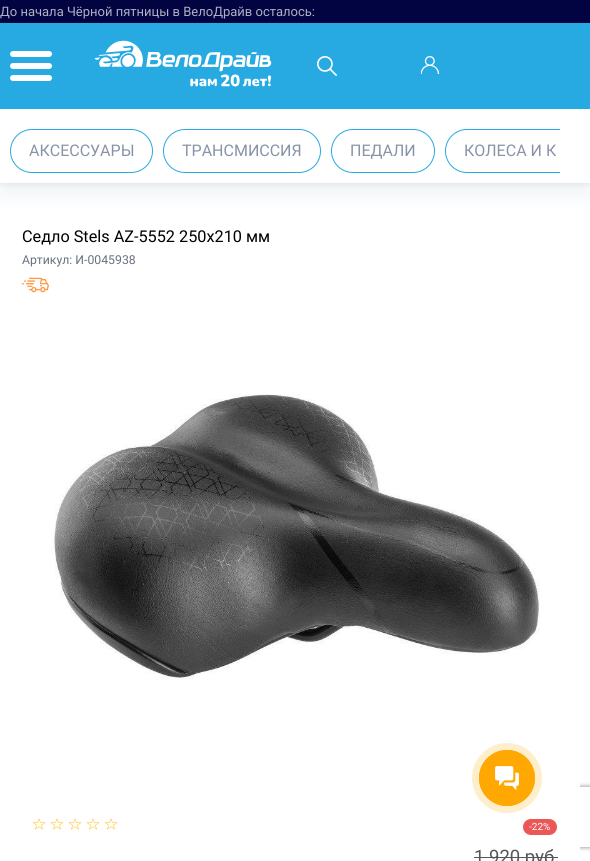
#include <cairo.h>
#include <math.h>
#include <stddef.h>


static void set_color(cairo_t *cr, unsigned color) {
    cairo_set_source_rgb(cr, (color >> 16) / 255.0, (color >> 8 & 255) / 255.0, (color & 255) / 255.0);
}

static void draw_text(cairo_t *cr, double x, double y, const char *s, const char *family, double size, int italic, int bold, unsigned color) {
    cairo_select_font_face(cr, family, italic ? CAIRO_FONT_SLANT_ITALIC : CAIRO_FONT_SLANT_NORMAL,
        bold ? CAIRO_FONT_WEIGHT_BOLD : CAIRO_FONT_WEIGHT_NORMAL);
    cairo_set_font_size(cr, size);
    set_color(cr, color);
    cairo_move_to(cr, x, y);
    cairo_show_text(cr, s);
}

static void fill_rect(cairo_t *cr, double x, double y, double w, double h, unsigned color) {
    set_color(cr, color);
    cairo_rectangle(cr, x, y, w, h);
    cairo_fill(cr);
}

static void rounded_rect(cairo_t *cr, double x, double y, double w, double h, double r) {
    cairo_new_sub_path(cr);
    cairo_arc(cr, x + w - r, y + h - r, r, 0, M_PI / 2);
    cairo_arc(cr, x + r, y + h - r, r, M_PI / 2, M_PI);
    cairo_arc(cr, x + r, y + r, r, M_PI, 1.5 * M_PI);
    cairo_arc(cr, x + w - r, y + r, r, 1.5 * M_PI, 2 * M_PI);
    cairo_close_path(cr);
}

static void draw_shadow(cairo_t *cr, double x, double y, double w, double h, double r, double blur, double alpha) {
    cairo_push_group_with_content(cr, CAIRO_CONTENT_ALPHA);
    cairo_set_operator(cr, CAIRO_OPERATOR_SOURCE);
    for (int i = 15; i >= -15 && fmin(w, h) + blur * i / 3 > 0; i -= 2) {
        double e = blur * i / 6;
        cairo_set_source_rgba(cr, 0, 0, 0, alpha * erfc((i - 1) / 8.5) / 2);
        rounded_rect(cr, x - e, y - e, w + 2 * e, h + 2 * e, fmax(0, fmin(r + e + blur * .6, fmin(w, h) / 2 + e)));
        cairo_fill(cr);
    }
    cairo_pattern_t *soft = cairo_pop_group(cr);
    cairo_mask(cr, soft);
    cairo_pattern_destroy(soft);
}

static void draw_image(cairo_t *cr, const char *path, double x, double y, double w, double h) {
    cairo_surface_t *image = cairo_image_surface_create_from_png(path);
    cairo_save(cr);
    cairo_set_source_surface(cr, image, x, y);
    cairo_rectangle(cr, x, y, w, h);
    cairo_fill(cr);
    cairo_restore(cr);
    cairo_surface_destroy(image);
}

int main(void) {
    cairo_surface_t *surface = cairo_image_surface_create(CAIRO_FORMAT_RGB24, 590, 861);
    cairo_t *cr = cairo_create(surface);
    cairo_font_options_t *options = cairo_font_options_create();
    cairo_font_options_set_hint_metrics(options, CAIRO_HINT_METRICS_OFF);
    cairo_font_options_set_hint_style(options, CAIRO_HINT_STYLE_NONE);
    cairo_set_font_options(cr, options);
    cairo_set_miter_limit(cr, 4);
    set_color(cr, 0xFFFFFF);
    cairo_paint(cr);
    set_color(cr, 0xBACAD2);
    draw_shadow(cr, 0, 36, 590, 160, 0, 9, 0.22);
    draw_shadow(cr, 0, 25, 590, 160, 0, 2, 0.3);
    fill_rect(cr, 0, 0, 590, 23, 0x010441);
    draw_text(cr, 0, 16, "До начала Чёрной пятницы в ВелоДрайв осталось:", "Roboto", 13, 0, 0, 0xAFB0C2);
    fill_rect(cr, 0, 23, 590, 86, 0x27AAE1);
    set_color(cr, 0xFFFFFF);
    rounded_rect(cr, 10, 51, 42, 6, 3);
    cairo_fill(cr);
    rounded_rect(cr, 10, 63, 42, 6, 3);
    cairo_fill(cr);
    rounded_rect(cr, 10, 75, 42, 6, 3);
    cairo_fill(cr);
    draw_image(cr, "assets/img1.png", 94, 40, 178, 47);
    draw_image(cr, "assets/img2.png", 317, 56, 20, 20);
    draw_image(cr, "assets/img3.png", 421, 56, 19, 18);
    fill_rect(cr, 0, 109, 590, 74, 0xFFFFFF);
    rounded_rect(cr, 10.5, 129.5, 142, 43, 21.5);
    set_color(cr, 0x27AAE1);
    cairo_set_line_width(cr, 1);
    cairo_stroke(cr);
    draw_text(cr, 29, 156, "АКСЕССУАРЫ", "Roboto", 16, 0, 0, 0x8893A6);
    rounded_rect(cr, 163.5, 129.5, 157, 43, 21.5);
    set_color(cr, 0x27AAE1);
    cairo_stroke(cr);
    draw_text(cr, 182, 156, "ТРАНСМИССИЯ", "Roboto", 16, 0, 0, 0x8893A6);
    rounded_rect(cr, 331.5, 129.5, 103, 43, 21.5);
    set_color(cr, 0x27AAE1);
    cairo_stroke(cr);
    draw_text(cr, 350, 156, "ПЕДАЛИ", "Roboto", 16, 0, 0, 0x8893A6);
    cairo_save(cr);
    cairo_rectangle(cr, 0, 109, 560, 74);
    cairo_clip(cr);
    rounded_rect(cr, 445.5, 129.5, 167, 43, 21.5);
    set_color(cr, 0x27AAE1);
    cairo_stroke(cr);
    cairo_restore(cr);
    draw_text(cr, 464, 156, "КОЛЕСА И К", "Roboto", 16, 0, 0, 0x8893A6);
    cairo_save(cr);
    cairo_set_fill_rule(cr, CAIRO_FILL_RULE_EVEN_ODD);
    cairo_new_path(cr);
    cairo_move_to(cr, 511, 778);
    cairo_line_to(cr, 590, 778);
    cairo_line_to(cr, 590, 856);
    cairo_line_to(cr, 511, 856);
    cairo_close_path(cr);
    cairo_move_to(cr, 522, 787);
    cairo_line_to(cr, 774, 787);
    cairo_curve_to(cr, 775, 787, 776, 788, 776, 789);
    cairo_line_to(cr, 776, 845);
    cairo_curve_to(cr, 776, 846, 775, 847, 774, 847);
    cairo_line_to(cr, 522, 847);
    cairo_curve_to(cr, 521, 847, 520, 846, 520, 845);
    cairo_line_to(cr, 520, 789);
    cairo_curve_to(cr, 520, 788, 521, 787, 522, 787);
    cairo_close_path(cr);
    cairo_clip(cr);
    set_color(cr, 0x808080);
    draw_shadow(cr, 520, 787, 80, 60, 2, 2.5, 1);
    cairo_restore(cr);
    fill_rect(cr, 515, 782, 65, 70, 0xFFFFFF);
    draw_text(cr, 22, 242, "Седло Stels AZ-5552 250x210 мм", "Roboto", 16.25, 0, 0, 0x000000);
    draw_text(cr, 22, 264, "Артикул: И-0045938", "Roboto", 12.25, 0, 0, 0x697180);
    draw_image(cr, "assets/img4.png", 22, 277, 27, 16);
    draw_image(cr, "assets/img5.png", 51, 394, 489, 285);
    draw_image(cr, "assets/img6.png", 32, 818, 14, 12);
    draw_image(cr, "assets/img6.png", 50, 818, 14, 12);
    draw_image(cr, "assets/img6.png", 68, 818, 14, 12);
    draw_image(cr, "assets/img6.png", 86, 818, 14, 12);
    draw_image(cr, "assets/img6.png", 104, 818, 14, 12);
    set_color(cr, 0xEB5757);
    rounded_rect(cr, 522.5, 818.5, 35, 17, 8.5);
    cairo_fill_preserve(cr);
    set_color(cr, 0xFFFFFF);
    cairo_stroke(cr);
    draw_text(cr, 529, 830, "-22%", "Roboto", 10, 0, 0, 0xFFFFFF);
    draw_text(cr, 474, 863, "1 920 руб", "Roboto", 18.5, 0, 0, 0x565656);
    fill_rect(cr, 474, 857, 84, 1, 0x565656);
    set_color(cr, 0xFFEECC);
    cairo_new_path(cr);
    cairo_arc(cr, 507, 778, 35, 0, 2 * M_PI);
    cairo_fill(cr);
    cairo_arc(cr, 507, 778, 27.6, 0, 2 * M_PI);
    set_color(cr, 0xFFA801);
    cairo_set_line_width(cr, 0.8);
    cairo_stroke(cr);
    cairo_arc(cr, 507, 778, 28, 0, 2 * M_PI);
    cairo_fill(cr);
    draw_image(cr, "assets/img7.png", 495, 766, 24, 24);
    cairo_surface_write_to_png(surface, "output.png");
    cairo_font_options_destroy(options);
    cairo_destroy(cr);
    cairo_surface_destroy(surface);
    return 0;
}
